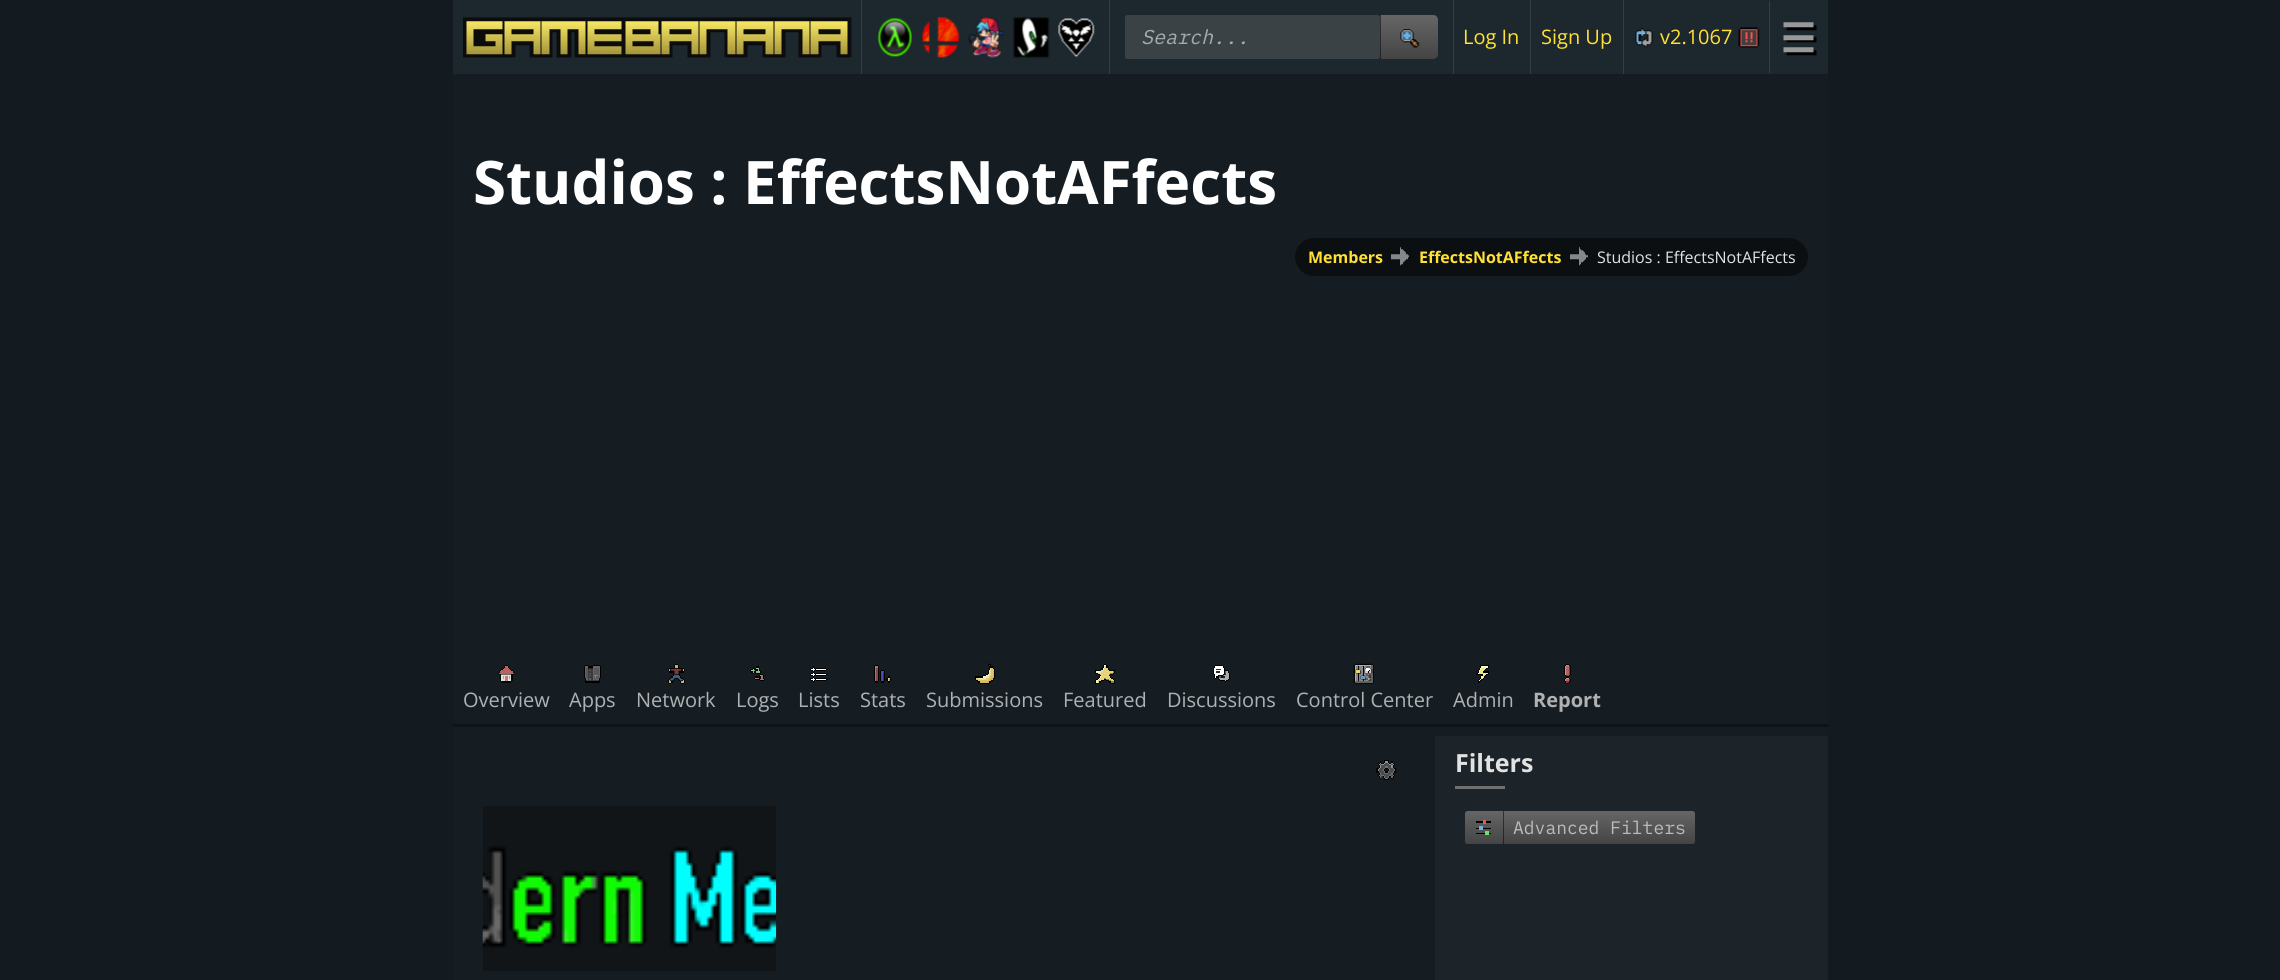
#include <cairo.h>
#include <math.h>
#include <stddef.h>


static void set_color(cairo_t *cr, unsigned color) {
    cairo_set_source_rgb(cr, (color >> 16) / 255.0, (color >> 8 & 255) / 255.0, (color & 255) / 255.0);
}

static void draw_text(cairo_t *cr, double x, double y, const char *s, const char *family, double size, int italic, int bold, unsigned color) {
    cairo_select_font_face(cr, family, italic ? CAIRO_FONT_SLANT_ITALIC : CAIRO_FONT_SLANT_NORMAL,
        bold ? CAIRO_FONT_WEIGHT_BOLD : CAIRO_FONT_WEIGHT_NORMAL);
    cairo_set_font_size(cr, size);
    set_color(cr, color);
    cairo_move_to(cr, x, y);
    cairo_show_text(cr, s);
}

static void fill_rect(cairo_t *cr, double x, double y, double w, double h, unsigned color) {
    set_color(cr, color);
    cairo_rectangle(cr, x, y, w, h);
    cairo_fill(cr);
}

static void rounded_rect(cairo_t *cr, double x, double y, double w, double h, double r) {
    cairo_new_sub_path(cr);
    cairo_arc(cr, x + w - r, y + h - r, r, 0, M_PI / 2);
    cairo_arc(cr, x + r, y + h - r, r, M_PI / 2, M_PI);
    cairo_arc(cr, x + r, y + r, r, M_PI, 1.5 * M_PI);
    cairo_arc(cr, x + w - r, y + r, r, 1.5 * M_PI, 2 * M_PI);
    cairo_close_path(cr);
}

static void draw_image(cairo_t *cr, const char *path, double x, double y, double w, double h) {
    cairo_surface_t *image = cairo_image_surface_create_from_png(path);
    cairo_save(cr);
    cairo_set_source_surface(cr, image, x, y);
    cairo_rectangle(cr, x, y, w, h);
    cairo_fill(cr);
    cairo_restore(cr);
    cairo_surface_destroy(image);
}

int main(void) {
    cairo_surface_t *surface = cairo_image_surface_create(CAIRO_FORMAT_RGB24, 2280, 980);
    cairo_t *cr = cairo_create(surface);
    cairo_font_options_t *options = cairo_font_options_create();
    cairo_font_options_set_hint_metrics(options, CAIRO_HINT_METRICS_OFF);
    cairo_font_options_set_hint_style(options, CAIRO_HINT_STYLE_NONE);
    cairo_set_font_options(cr, options);
    cairo_set_miter_limit(cr, 4);
    cairo_pattern_t *gradient;
    set_color(cr, 0x131A20);
    cairo_paint(cr);
    fill_rect(cr, 453, 0, 1375, 74, 0x1C272E);
    draw_image(cr, "assets/img1.png", 463, 17, 389, 41);
    fill_rect(cr, 861, 0, 1, 74, 0x333D43);
    draw_image(cr, "assets/img2.png", 877, 17, 35, 41);
    draw_image(cr, "assets/img3.png", 922, 17, 38, 41);
    draw_image(cr, "assets/img4.png", 968, 17, 36, 41);
    draw_image(cr, "assets/img5.png", 1013, 17, 37, 41);
    draw_image(cr, "assets/img6.png", 1058, 18, 37, 40);
    fill_rect(cr, 1109, 0, 1, 74, 0x333D43);
    set_color(cr, 0x3A4246);
    rounded_rect(cr, 1125, 15, 255, 44, 2.5);
    cairo_fill(cr);
    draw_text(cr, 1141, 44, "Search...", "IBM Plex Mono", 20, 1, 0, 0xA6AAAC);
    gradient = cairo_pattern_create_linear(1409, 15, 1409, 59);
    cairo_pattern_add_color_stop_rgba(gradient, 0, 0.4, 0.4, 0.4, 1);
    cairo_pattern_add_color_stop_rgba(gradient, 1, 0.267, 0.267, 0.267, 1);
    cairo_set_source(cr, gradient);
    cairo_pattern_destroy(gradient);
    cairo_new_path(cr);
    cairo_move_to(cr, 1380, 15);
    cairo_line_to(cr, 1433, 15);
    cairo_curve_to(cr, 1436, 15, 1438, 17, 1438, 20);
    cairo_line_to(cr, 1438, 54);
    cairo_curve_to(cr, 1438, 57, 1436, 59, 1433, 59);
    cairo_line_to(cr, 1380, 59);
    cairo_close_path(cr);
    cairo_fill(cr);
    gradient = cairo_pattern_create_linear(1409, 15, 1409, 59);
    cairo_pattern_add_color_stop_rgba(gradient, 0, 0.2, 0.2, 0.2, 1);
    cairo_pattern_add_color_stop_rgba(gradient, 1, 0.133, 0.133, 0.133, 1);
    cairo_set_source(cr, gradient);
    cairo_pattern_destroy(gradient);
    cairo_rectangle(cr, 1380, 15, 1, 44);
    cairo_fill(cr);
    draw_image(cr, "assets/img7.png", 1400, 29, 20, 20);
    fill_rect(cr, 1453, 0, 1, 74, 0x333D43);
    draw_text(cr, 1463, 44, "Log In", "Open Sans", 20, 0, 0, 0xFFE033);
    fill_rect(cr, 1530, 0, 1, 74, 0x333D43);
    draw_text(cr, 1541, 44, "Sign Up", "Open Sans", 20, 0, 0, 0xFFE033);
    fill_rect(cr, 1623, 0, 1, 74, 0x333D43);
    draw_image(cr, "assets/img8.png", 1635, 27, 18, 21);
    draw_text(cr, 1660, 44, "v2.1067", "Open Sans", 20, 0, 0, 0xFFE033);
    draw_image(cr, "assets/img9.png", 1738, 27, 22, 21);
    fill_rect(cr, 1769, 1, 1, 72, 0x333D43);
    draw_image(cr, "assets/img10.png", 1783, 22, 34, 34);
    fill_rect(cr, 453, 74, 1375, 906, 0x151D23);
    draw_text(cr, 473, 204, "Studios : EffectsNotAFfects", "Open Sans", 60, 0, 1, 0xFFFFFF);
    set_color(cr, 0x0B0F12);
    rounded_rect(cr, 1295, 238, 513, 38, 19);
    cairo_fill(cr);
    draw_text(cr, 1308, 263, "Members", "Open Sans", 16, 0, 1, 0xFFE033);
    draw_image(cr, "assets/img11.png", 1391, 247, 18, 19);
    draw_text(cr, 1419, 263, "EffectsNotAFfects", "Open Sans", 16, 0, 1, 0xFFE033);
    draw_image(cr, "assets/img12.png", 1570, 247, 18, 19);
    draw_text(cr, 1597, 263, "Studios : EffectsNotAFfects", "Open Sans", 16, 0, 0, 0xE2E2E2);
    fill_rect(cr, 453, 724, 1375, 3, 0x0E1317);
    draw_image(cr, "assets/img13.png", 498, 665, 17, 18);
    draw_text(cr, 463, 707, "Overview", "Open Sans", 20, 0, 0, 0xAFB1B2);
    draw_image(cr, "assets/img14.png", 584, 665, 17, 18);
    draw_text(cr, 569, 707, "Apps", "Open Sans", 20, 0, 0, 0xAFB1B2);
    draw_image(cr, "assets/img15.png", 668, 663, 17, 21);
    draw_text(cr, 636, 707, "Network", "Open Sans", 20, 0, 0, 0xAFB1B2);
    draw_image(cr, "assets/img16.png", 750, 666, 15, 15);
    draw_text(cr, 736, 707, "Logs", "Open Sans", 20, 0, 0, 0xAFB1B2);
    draw_image(cr, "assets/img17.png", 810, 666, 18, 17);
    draw_text(cr, 798, 707, "Lists", "Open Sans", 20, 0, 0, 0xAFB1B2);
    draw_image(cr, "assets/img18.png", 874, 665, 17, 18);
    draw_text(cr, 860, 707, "Stats", "Open Sans", 20, 0, 0, 0xAFB1B2);
    draw_image(cr, "assets/img19.png", 975, 663, 20, 21);
    draw_text(cr, 926, 707, "Submissions", "Open Sans", 20, 0, 0, 0xAFB1B2);
    draw_image(cr, "assets/img20.png", 1095, 663, 20, 21);
    draw_text(cr, 1063, 707, "Featured", "Open Sans", 20, 0, 0, 0xAFB1B2);
    draw_image(cr, "assets/img21.png", 1213, 665, 17, 18);
    draw_text(cr, 1167, 707, "Discussions", "Open Sans", 20, 0, 0, 0xAFB1B2);
    draw_image(cr, "assets/img22.png", 1353, 663, 21, 21);
    draw_text(cr, 1296, 707, "Control Center", "Open Sans", 20, 0, 0, 0xAFB1B2);
    draw_image(cr, "assets/img23.png", 1476, 665, 13, 18);
    draw_text(cr, 1453, 707, "Admin", "Open Sans", 20, 0, 0, 0xAFB1B2);
    draw_image(cr, "assets/img24.png", 1564, 663, 7, 21);
    draw_text(cr, 1533, 707, "Report", "Open Sans", 20, 0, 1, 0xAFB1B2);
    draw_image(cr, "assets/img25.png", 1376, 760, 21, 20);
    fill_rect(cr, 483, 806, 293, 165, 0x111518);
    draw_image(cr, "assets/img26.png", 482, 846, 295, 102);
    fill_rect(cr, 1435, 736, 393, 244, 0x1C242A);
    draw_text(cr, 1455, 772, "Filters", "Open Sans", 25, 0, 1, 0xE2E2E2);
    fill_rect(cr, 1455, 786, 50, 3, 0x707070);
    gradient = cairo_pattern_create_linear(1580, 811, 1580, 844);
    cairo_pattern_add_color_stop_rgba(gradient, 0, 0.4, 0.4, 0.4, 1);
    cairo_pattern_add_color_stop_rgba(gradient, 1, 0.267, 0.267, 0.267, 1);
    cairo_set_source(cr, gradient);
    cairo_pattern_destroy(gradient);
    rounded_rect(cr, 1465, 811, 230, 33, 2.5);
    cairo_fill(cr);
    gradient = cairo_pattern_create_linear(1580, 811, 1580, 844);
    cairo_pattern_add_color_stop_rgba(gradient, 0, 0.2, 0.2, 0.2, 1);
    cairo_pattern_add_color_stop_rgba(gradient, 1, 0.133, 0.133, 0.133, 1);
    cairo_set_source(cr, gradient);
    cairo_pattern_destroy(gradient);
    cairo_rectangle(cr, 1503, 811, 1, 33);
    cairo_fill(cr);
    draw_image(cr, "assets/img27.png", 1476, 820, 15, 15);
    draw_text(cr, 1513, 834, "Advanced Filters", "IBM Plex Mono", 18, 0, 0, 0xBBBBBB);
    cairo_surface_write_to_png(surface, "output.png");
    cairo_font_options_destroy(options);
    cairo_destroy(cr);
    cairo_surface_destroy(surface);
    return 0;
}
